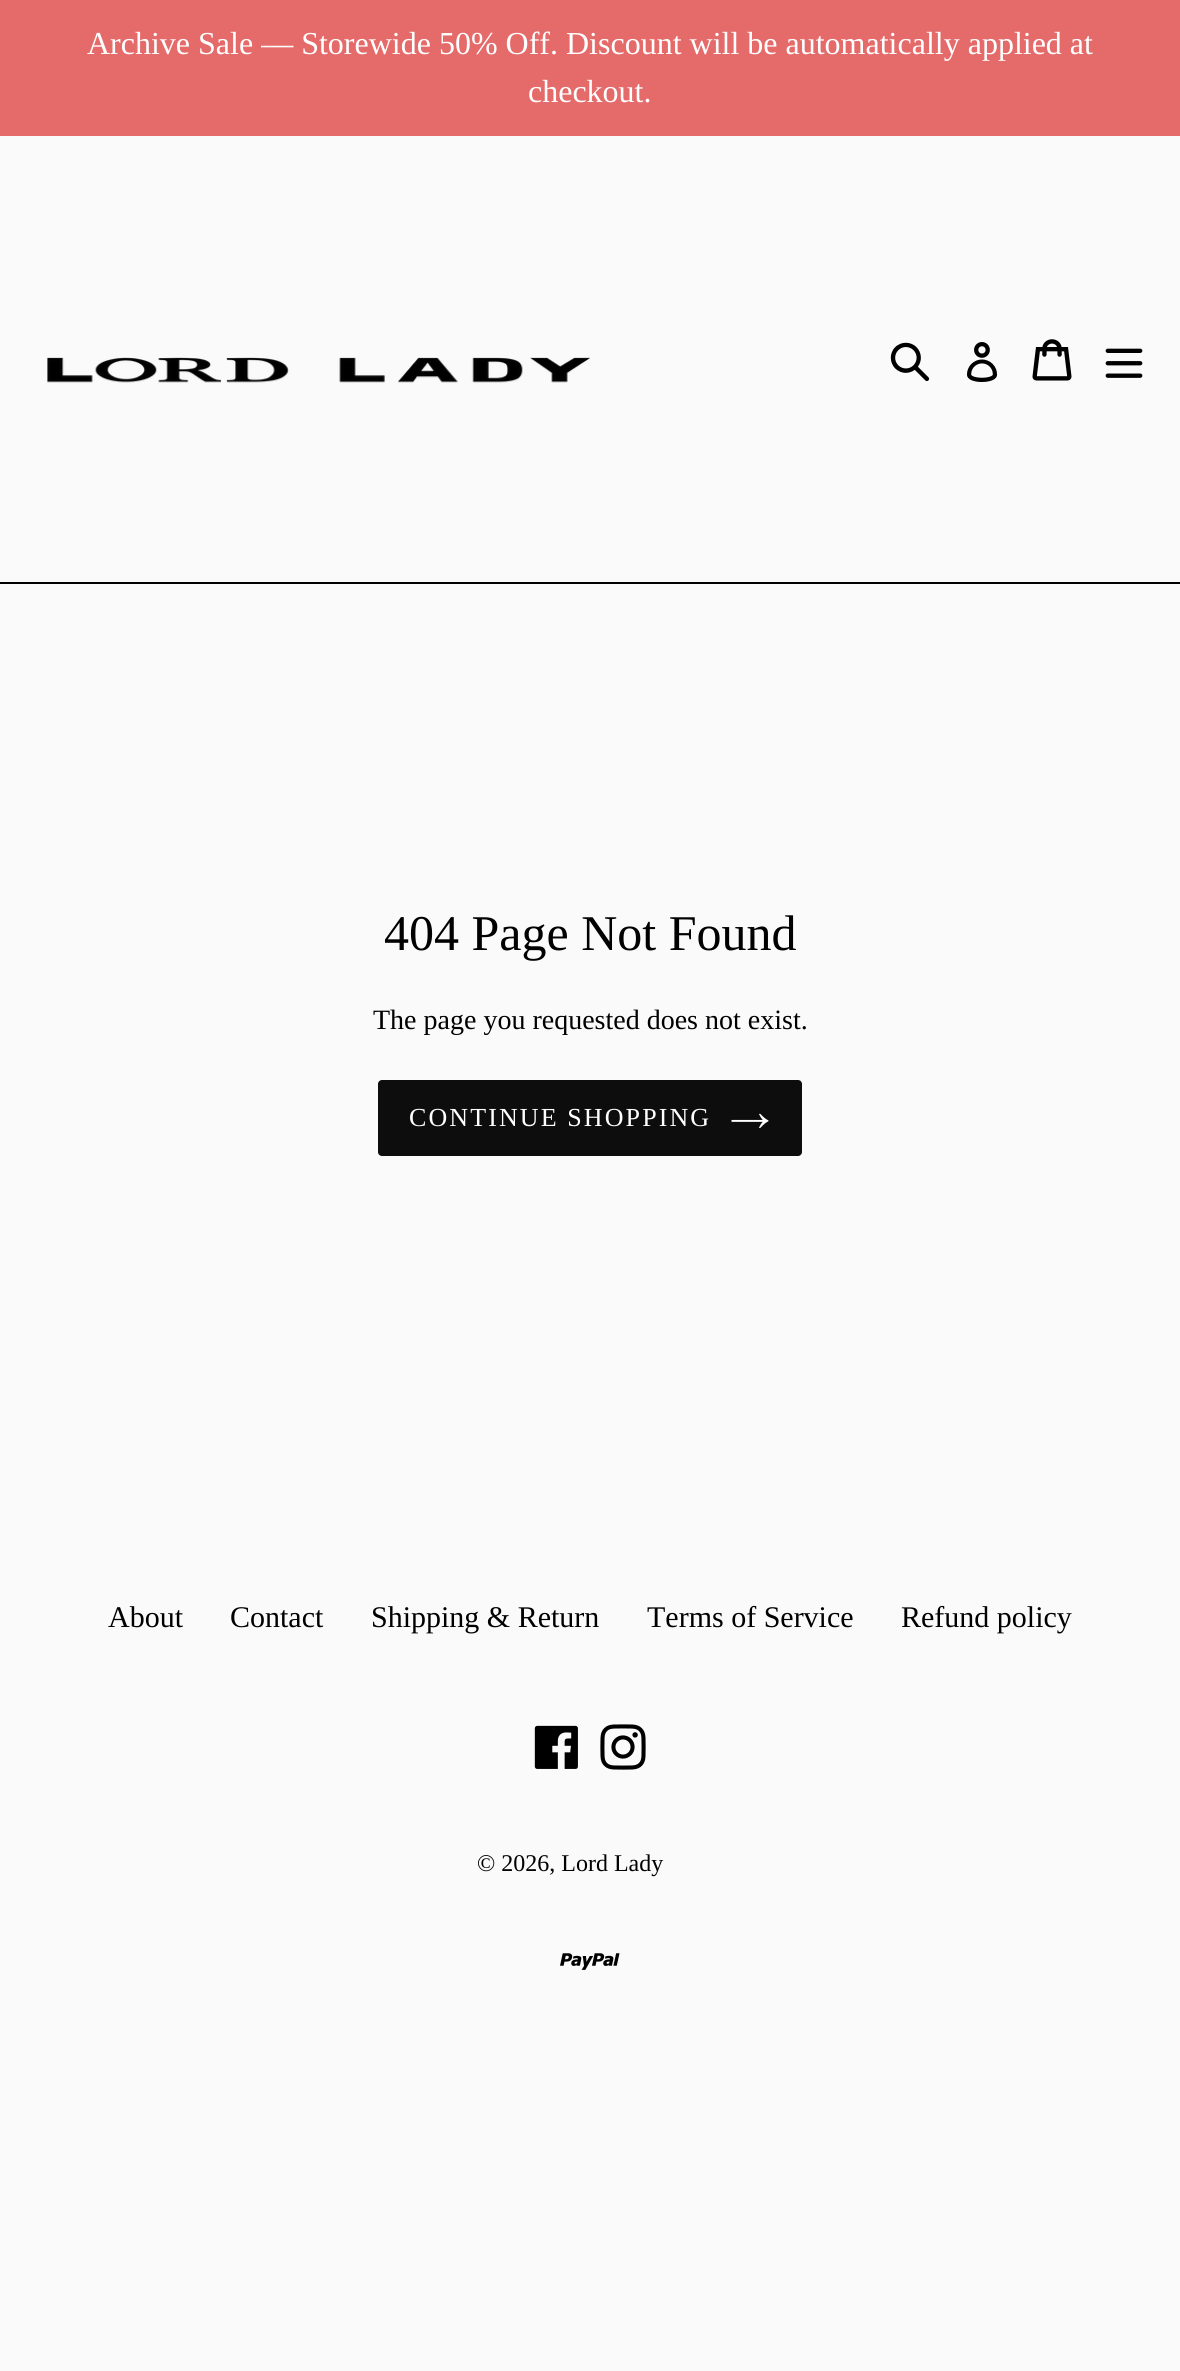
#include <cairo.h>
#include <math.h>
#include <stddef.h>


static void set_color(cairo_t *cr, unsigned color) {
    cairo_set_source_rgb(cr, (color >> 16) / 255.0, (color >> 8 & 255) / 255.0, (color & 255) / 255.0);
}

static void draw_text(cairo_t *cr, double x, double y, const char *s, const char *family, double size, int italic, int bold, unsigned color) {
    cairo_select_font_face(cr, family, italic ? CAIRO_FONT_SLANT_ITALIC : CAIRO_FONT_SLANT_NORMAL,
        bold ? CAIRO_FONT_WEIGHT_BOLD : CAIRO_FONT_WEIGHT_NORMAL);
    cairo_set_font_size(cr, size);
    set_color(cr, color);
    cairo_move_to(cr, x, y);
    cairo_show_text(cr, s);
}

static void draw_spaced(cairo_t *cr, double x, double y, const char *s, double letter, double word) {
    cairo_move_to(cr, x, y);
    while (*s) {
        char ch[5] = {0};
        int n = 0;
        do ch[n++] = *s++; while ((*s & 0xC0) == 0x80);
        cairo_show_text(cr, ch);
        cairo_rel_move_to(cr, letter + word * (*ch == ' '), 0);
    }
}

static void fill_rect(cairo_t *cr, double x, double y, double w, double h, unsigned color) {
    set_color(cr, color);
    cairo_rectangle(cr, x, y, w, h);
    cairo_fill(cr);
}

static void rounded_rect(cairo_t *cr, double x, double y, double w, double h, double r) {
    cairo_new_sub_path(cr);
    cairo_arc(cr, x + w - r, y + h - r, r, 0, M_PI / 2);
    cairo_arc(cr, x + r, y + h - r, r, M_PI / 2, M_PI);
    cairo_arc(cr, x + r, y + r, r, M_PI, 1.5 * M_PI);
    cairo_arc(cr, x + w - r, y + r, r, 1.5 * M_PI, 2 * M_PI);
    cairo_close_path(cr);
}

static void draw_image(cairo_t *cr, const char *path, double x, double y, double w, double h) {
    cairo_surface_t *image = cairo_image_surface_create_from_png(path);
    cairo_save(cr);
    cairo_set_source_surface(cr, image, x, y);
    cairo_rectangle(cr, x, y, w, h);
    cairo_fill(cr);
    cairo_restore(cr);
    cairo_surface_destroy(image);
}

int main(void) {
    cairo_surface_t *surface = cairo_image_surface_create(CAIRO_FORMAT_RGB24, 1180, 2371);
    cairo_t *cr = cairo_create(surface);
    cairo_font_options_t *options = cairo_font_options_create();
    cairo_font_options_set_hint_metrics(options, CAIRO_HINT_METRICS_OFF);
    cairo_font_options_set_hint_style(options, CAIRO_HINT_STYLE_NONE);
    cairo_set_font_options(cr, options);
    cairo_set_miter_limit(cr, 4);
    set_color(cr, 0xFAFAFA);
    cairo_paint(cr);
    fill_rect(cr, 0, 0, 1180, 136, 0xE56A6A);
    draw_text(cr, 87, 54, "Archive Sale — Storewide 50% Off. Discount will be automatically applied at", "Liberation Serif", 32, 0, 0, 0xFFFFFF);
    draw_text(cr, 528, 102, "checkout.", "Liberation Serif", 32, 0, 0, 0xFFFFFF);
    fill_rect(cr, 0, 582, 1180, 2, 0x000000);
    draw_image(cr, "assets/img1.png", 47, 357, 543, 26);
    draw_image(cr, "assets/img2.png", 890, 342, 40, 40);
    draw_image(cr, "assets/img3.png", 967, 342, 31, 40);
    draw_image(cr, "assets/img4.png", 1032, 339, 40, 42);
    draw_image(cr, "assets/img5.png", 1105, 348, 38, 30);
    draw_text(cr, 384, 950, "404 Page Not Found", "Liberation Serif", 50, 0, 0, 0x000000);
    draw_text(cr, 373, 1029, "The page you requested does not exist.", "Liberation Serif", 28, 0, 0, 0x000000);
    set_color(cr, 0x0D0D0D);
    rounded_rect(cr, 378, 1080, 424, 76, 4);
    cairo_fill(cr);
    cairo_set_font_size(cr, 26);
    set_color(cr, 0xFFFFFF);
    draw_spaced(cr, 409, 1126, "CONTINUE SHOPPING", 2.1, 0);
    draw_image(cr, "assets/img6.png", 731, 1113, 38, 15);
    draw_text(cr, 108, 1627, "About", "Liberation Serif", 30, 0, 0, 0x000000);
    draw_text(cr, 230, 1627, "Contact", "Liberation Serif", 30, 0, 0, 0x000000);
    draw_text(cr, 371, 1627, "Shipping & Return", "Liberation Serif", 30, 0, 0, 0x000000);
    draw_text(cr, 647, 1627, "Terms of Service", "Liberation Serif", 30, 0, 0, 0x000000);
    draw_text(cr, 901, 1627, "Refund policy", "Liberation Serif", 30, 0, 0, 0x000000);
    draw_image(cr, "assets/img7.png", 534, 1725, 44, 44);
    draw_image(cr, "assets/img8.png", 600, 1724, 46, 46);
    draw_text(cr, 477, 1871, "© 2026, Lord Lady", "Liberation Serif", 24, 0, 0, 0x000000);
    draw_image(cr, "assets/img9.png", 560, 1953, 60, 17);
    cairo_surface_write_to_png(surface, "output.png");
    cairo_font_options_destroy(options);
    cairo_destroy(cr);
    cairo_surface_destroy(surface);
    return 0;
}
